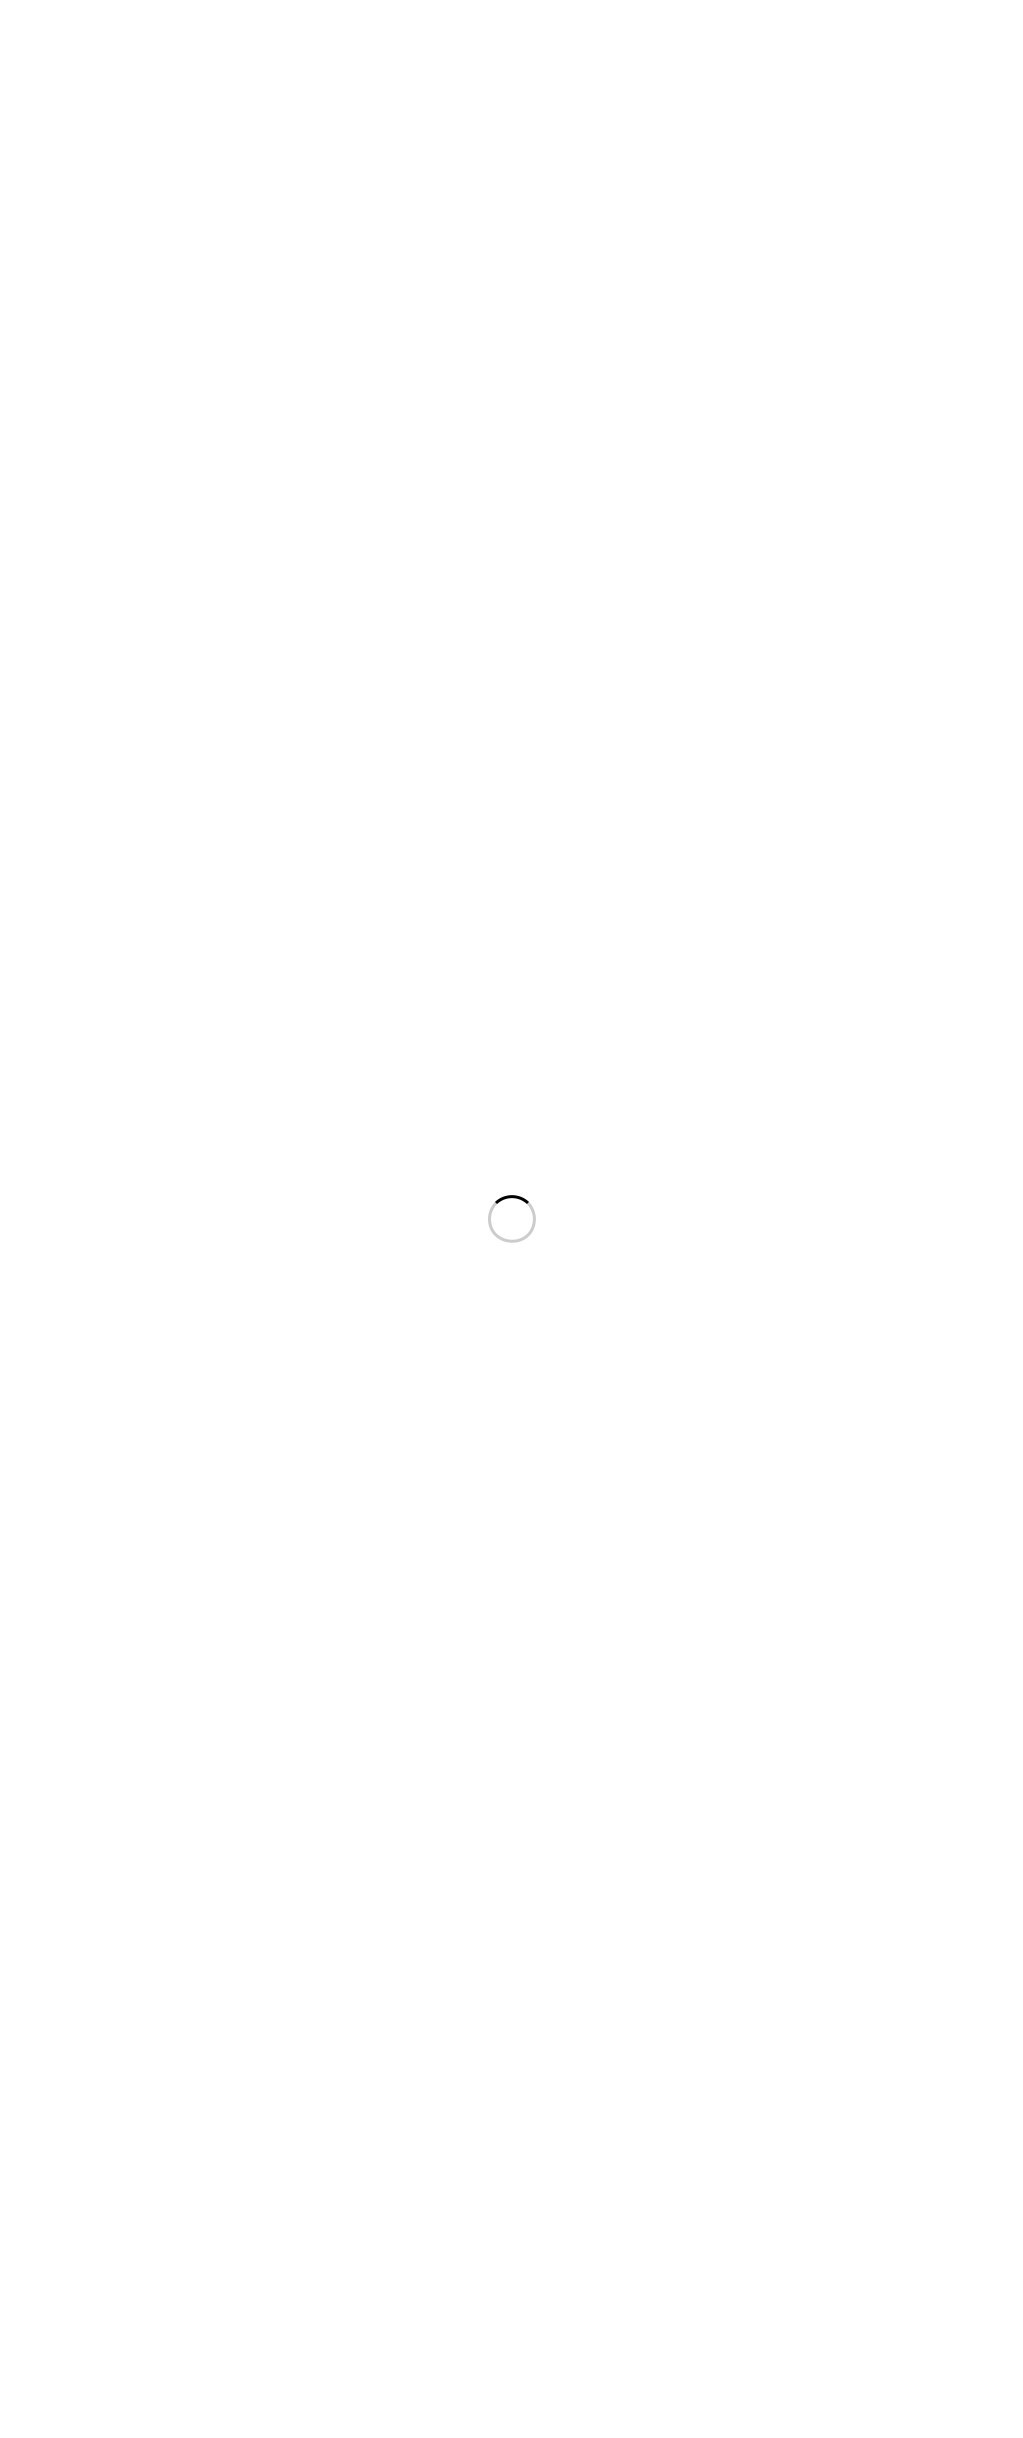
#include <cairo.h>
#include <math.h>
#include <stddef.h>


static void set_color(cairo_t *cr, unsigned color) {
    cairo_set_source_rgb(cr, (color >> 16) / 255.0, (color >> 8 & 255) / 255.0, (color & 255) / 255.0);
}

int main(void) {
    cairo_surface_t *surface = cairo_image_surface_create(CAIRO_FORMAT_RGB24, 1023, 2438);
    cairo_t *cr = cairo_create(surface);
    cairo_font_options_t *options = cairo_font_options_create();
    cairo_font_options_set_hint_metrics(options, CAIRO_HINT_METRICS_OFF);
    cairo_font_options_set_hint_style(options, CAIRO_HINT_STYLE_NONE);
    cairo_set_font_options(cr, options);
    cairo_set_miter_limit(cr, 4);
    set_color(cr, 0xFFFFFF);
    cairo_paint(cr);
    cairo_new_path(cr);
    cairo_move_to(cr, 496, 1203);
    cairo_curve_to(cr, 505, 1194.5, 519, 1194.5, 528, 1203);
    set_color(cr, 0x000000);
    cairo_set_line_width(cr, 3);
    cairo_stroke(cr);
    cairo_new_path(cr);
    cairo_move_to(cr, 528, 1203);
    cairo_curve_to(cr, 533, 1208.5, 535.5, 1216, 534, 1223.5);
    cairo_curve_to(cr, 529, 1249.5, 489.5, 1246, 489.5, 1219);
    cairo_curve_to(cr, 489.5, 1213, 492, 1207.5, 496, 1203);
    cairo_set_source_rgba(cr, 0, 0, 0, 0.2);
    cairo_stroke(cr);
    cairo_surface_write_to_png(surface, "output.png");
    cairo_font_options_destroy(options);
    cairo_destroy(cr);
    cairo_surface_destroy(surface);
    return 0;
}
